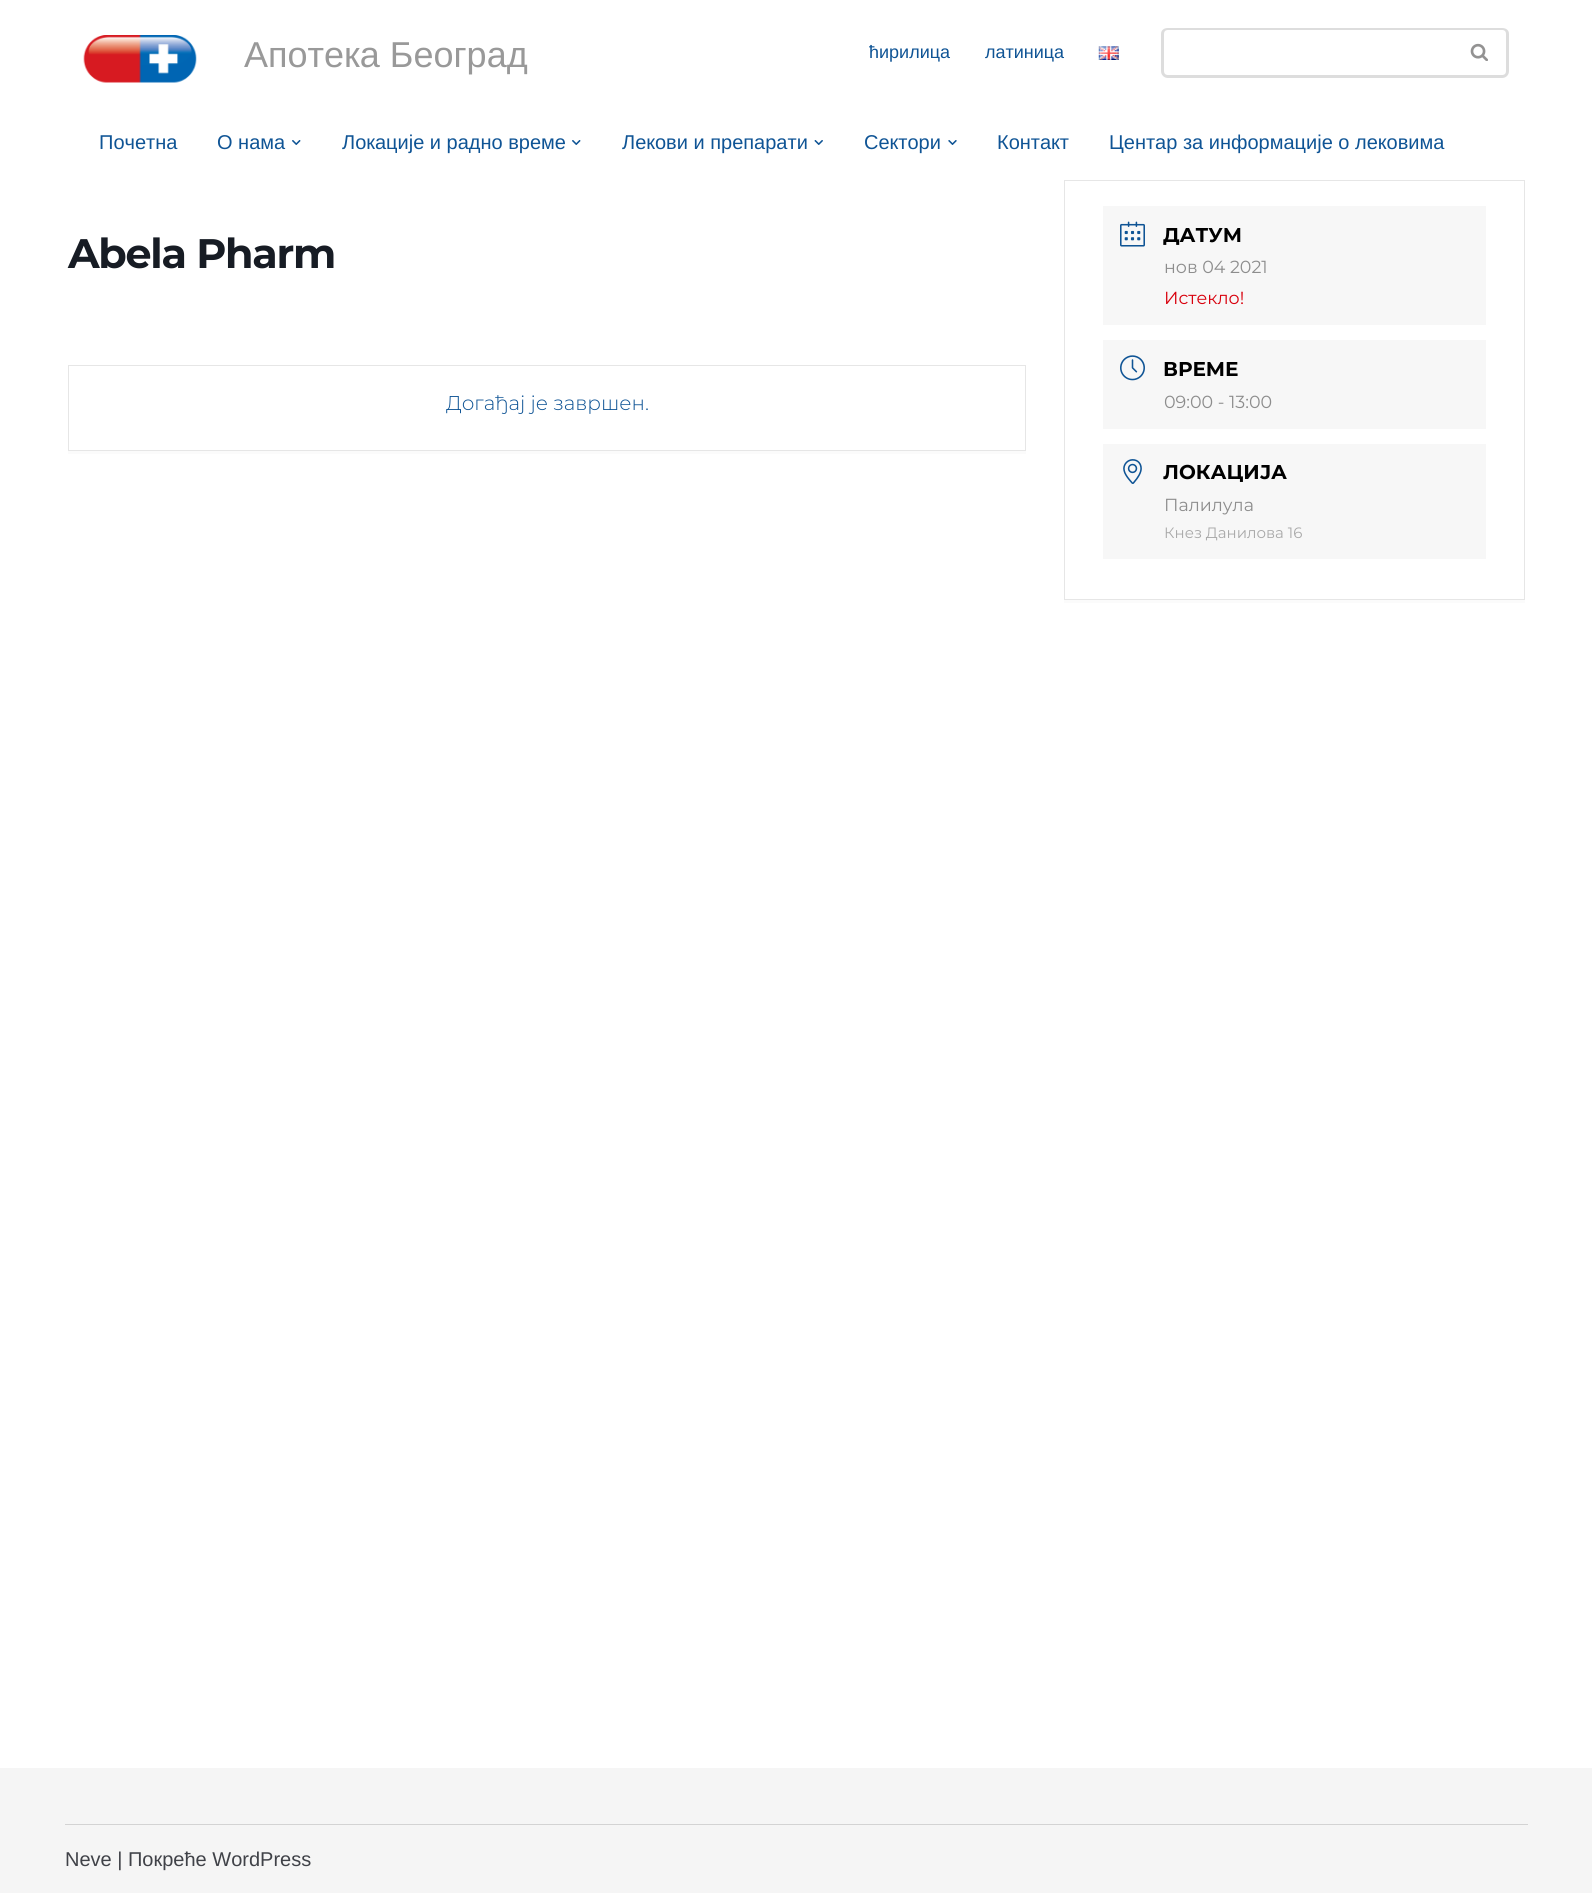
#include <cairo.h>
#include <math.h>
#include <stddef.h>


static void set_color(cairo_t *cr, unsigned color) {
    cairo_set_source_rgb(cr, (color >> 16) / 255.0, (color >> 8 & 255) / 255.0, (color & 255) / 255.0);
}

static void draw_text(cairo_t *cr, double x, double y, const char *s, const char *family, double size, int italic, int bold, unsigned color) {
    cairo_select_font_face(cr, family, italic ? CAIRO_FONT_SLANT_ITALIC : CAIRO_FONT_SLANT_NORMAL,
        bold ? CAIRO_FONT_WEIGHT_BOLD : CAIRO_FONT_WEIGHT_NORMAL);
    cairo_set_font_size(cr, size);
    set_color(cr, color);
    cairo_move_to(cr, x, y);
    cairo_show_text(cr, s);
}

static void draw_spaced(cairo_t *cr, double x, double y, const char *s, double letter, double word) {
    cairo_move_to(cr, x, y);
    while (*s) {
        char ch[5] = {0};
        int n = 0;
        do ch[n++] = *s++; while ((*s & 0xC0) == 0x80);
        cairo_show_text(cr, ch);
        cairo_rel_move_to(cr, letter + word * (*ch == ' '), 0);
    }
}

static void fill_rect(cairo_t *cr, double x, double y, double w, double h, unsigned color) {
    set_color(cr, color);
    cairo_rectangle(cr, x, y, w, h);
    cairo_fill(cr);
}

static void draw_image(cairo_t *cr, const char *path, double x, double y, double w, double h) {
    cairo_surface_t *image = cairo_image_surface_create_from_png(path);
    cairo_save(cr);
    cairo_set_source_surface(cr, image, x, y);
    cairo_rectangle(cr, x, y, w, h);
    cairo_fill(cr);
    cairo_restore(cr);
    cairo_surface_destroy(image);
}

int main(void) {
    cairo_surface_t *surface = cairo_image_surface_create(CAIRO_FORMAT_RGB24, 1592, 1893);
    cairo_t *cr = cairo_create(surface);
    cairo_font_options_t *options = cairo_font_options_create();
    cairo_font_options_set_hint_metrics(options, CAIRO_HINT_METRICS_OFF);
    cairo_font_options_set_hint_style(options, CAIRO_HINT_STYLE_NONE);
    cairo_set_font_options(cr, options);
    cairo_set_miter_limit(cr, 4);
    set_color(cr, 0xFFFFFF);
    cairo_paint(cr);
    draw_image(cr, "assets/img1.png", 83, 35, 114, 48);
    draw_text(cr, 244, 67, "Апотека Београд", "Liberation Sans", 36, 0, 0, 0x999999);
    draw_text(cr, 869, 58, "ћирилица", "Liberation Sans", 18, 0, 0, 0x0F5495);
    draw_text(cr, 985, 58, "латиница", "Liberation Sans", 18, 0, 0, 0x0F5495);
    draw_image(cr, "assets/img2.png", 1098, 46, 21, 14);
    set_color(cr, 0xDDDDDD);
    cairo_set_fill_rule(cr, CAIRO_FILL_RULE_EVEN_ODD);
    cairo_new_path(cr);
    cairo_move_to(cr, 1168, 28);
    cairo_line_to(cr, 1452, 28);
    cairo_line_to(cr, 1452, 78);
    cairo_line_to(cr, 1168, 78);
    cairo_curve_to(cr, 1164, 78, 1161, 75, 1161, 71);
    cairo_line_to(cr, 1161, 34);
    cairo_curve_to(cr, 1161, 30, 1164, 28, 1168, 28);
    cairo_close_path(cr);
    cairo_move_to(cr, 1168, 30);
    cairo_line_to(cr, 1452, 30);
    cairo_line_to(cr, 1452, 75);
    cairo_line_to(cr, 1168, 75);
    cairo_curve_to(cr, 1165, 75, 1164, 73, 1164, 71);
    cairo_line_to(cr, 1164, 34);
    cairo_curve_to(cr, 1164, 32, 1165, 30, 1168, 30);
    cairo_close_path(cr);
    cairo_fill(cr);
    cairo_new_path(cr);
    cairo_move_to(cr, 1452, 28);
    cairo_line_to(cr, 1502, 28);
    cairo_curve_to(cr, 1506, 28, 1509, 30, 1509, 34);
    cairo_line_to(cr, 1509, 71);
    cairo_curve_to(cr, 1509, 75, 1506, 78, 1502, 78);
    cairo_line_to(cr, 1452, 78);
    cairo_close_path(cr);
    cairo_move_to(cr, 1452, 30);
    cairo_line_to(cr, 1502, 30);
    cairo_curve_to(cr, 1505, 30, 1506, 32, 1506, 34);
    cairo_line_to(cr, 1506, 71);
    cairo_curve_to(cr, 1506, 73, 1505, 75, 1502, 75);
    cairo_line_to(cr, 1452, 75);
    cairo_close_path(cr);
    cairo_fill(cr);
    draw_image(cr, "assets/img3.png", 1470, 43, 18, 18);
    draw_text(cr, 99, 149, "Почетна", "Liberation Sans", 20, 0, 0, 0x0F5495);
    draw_text(cr, 217, 149, "О нама", "Liberation Sans", 20, 0, 0, 0x0F5495);
    draw_image(cr, "assets/img4.png", 292, 140, 9, 5);
    draw_text(cr, 342, 149, "Локације и радно време", "Liberation Sans", 20, 0, 0, 0x0F5495);
    draw_image(cr, "assets/img4.png", 572, 140, 9, 5);
    draw_text(cr, 622, 149, "Лекови и препарати", "Liberation Sans", 20, 0, 0, 0x0F5495);
    draw_image(cr, "assets/img5.png", 814, 140, 9, 5);
    draw_text(cr, 864, 149, "Сектори", "Liberation Sans", 20, 0, 0, 0x0F5495);
    draw_image(cr, "assets/img6.png", 948, 140, 9, 5);
    draw_text(cr, 997, 149, "Контакт", "Liberation Sans", 20, 0, 0, 0x0F5495);
    draw_text(cr, 1109, 149, "Центар за информације о лековима", "Liberation Sans", 20, 0, 0, 0x0F5495);
    cairo_select_font_face(cr, "Montserrat", CAIRO_FONT_SLANT_NORMAL, CAIRO_FONT_WEIGHT_BOLD);
    cairo_set_font_size(cr, 41.25);
    set_color(cr, 0x171C24);
    draw_spaced(cr, 68, 268, "Abela Pharm", -1.25, 0);
    fill_rect(cr, 68, 451, 958, 3, 0xFBFBFB);
    cairo_rectangle(cr, 68.5, 365.5, 957, 85);
    set_color(cr, 0xE6E6E6);
    cairo_set_line_width(cr, 1);
    cairo_stroke(cr);
    draw_text(cr, 446, 410, "Догађај је завршен.", "Montserrat Light", 20, 0, 0, 0x0F5495);
    fill_rect(cr, 1064, 600, 461, 3, 0xFBFBFB);
    cairo_rectangle(cr, 1064.5, 180.5, 460, 419);
    set_color(cr, 0xE6E6E6);
    cairo_stroke(cr);
    fill_rect(cr, 1103, 206, 383, 119, 0xF7F7F7);
    draw_image(cr, "assets/img7.png", 1120, 221, 25, 26);
    draw_text(cr, 1163, 242, "ДАТУМ", "Montserrat", 20, 0, 1, 0x000000);
    draw_text(cr, 1164, 273, "нов 04 2021", "Montserrat", 17.5, 0, 0, 0x8D8D8D);
    draw_text(cr, 1164, 304, "Истекло!", "Montserrat", 17.5, 0, 0, 0xD8000C);
    fill_rect(cr, 1103, 340, 383, 89, 0xF7F7F7);
    draw_image(cr, "assets/img8.png", 1120, 355, 25, 26);
    draw_text(cr, 1163, 376, "ВРЕМЕ", "Montserrat", 20, 0, 1, 0x000000);
    draw_text(cr, 1164, 408, "09:00 - 13:00", "Montserrat", 17.5, 0, 0, 0x8D8D8D);
    fill_rect(cr, 1103, 444, 383, 115, 0xF7F7F7);
    draw_image(cr, "assets/img9.png", 1123, 459, 19, 25);
    draw_text(cr, 1163, 479, "ЛОКАЦИЈА", "Montserrat", 20, 0, 1, 0x000000);
    draw_text(cr, 1164, 511, "Палилула", "Montserrat", 17.5, 0, 0, 0x8D8D8D);
    draw_text(cr, 1164, 538, "Кнез Данилова 16", "Montserrat", 15, 0, 0, 0xA9A9A9);
    fill_rect(cr, 0, 1768, 1592, 125, 0xF5F5F5);
    fill_rect(cr, 65, 1824, 1463, 1, 0xD3D3D3);
    draw_text(cr, 65, 1866, "Neve | Покреће WordPress", "Liberation Sans", 20, 0, 0, 0x404248);
    cairo_surface_write_to_png(surface, "output.png");
    cairo_font_options_destroy(options);
    cairo_destroy(cr);
    cairo_surface_destroy(surface);
    return 0;
}
